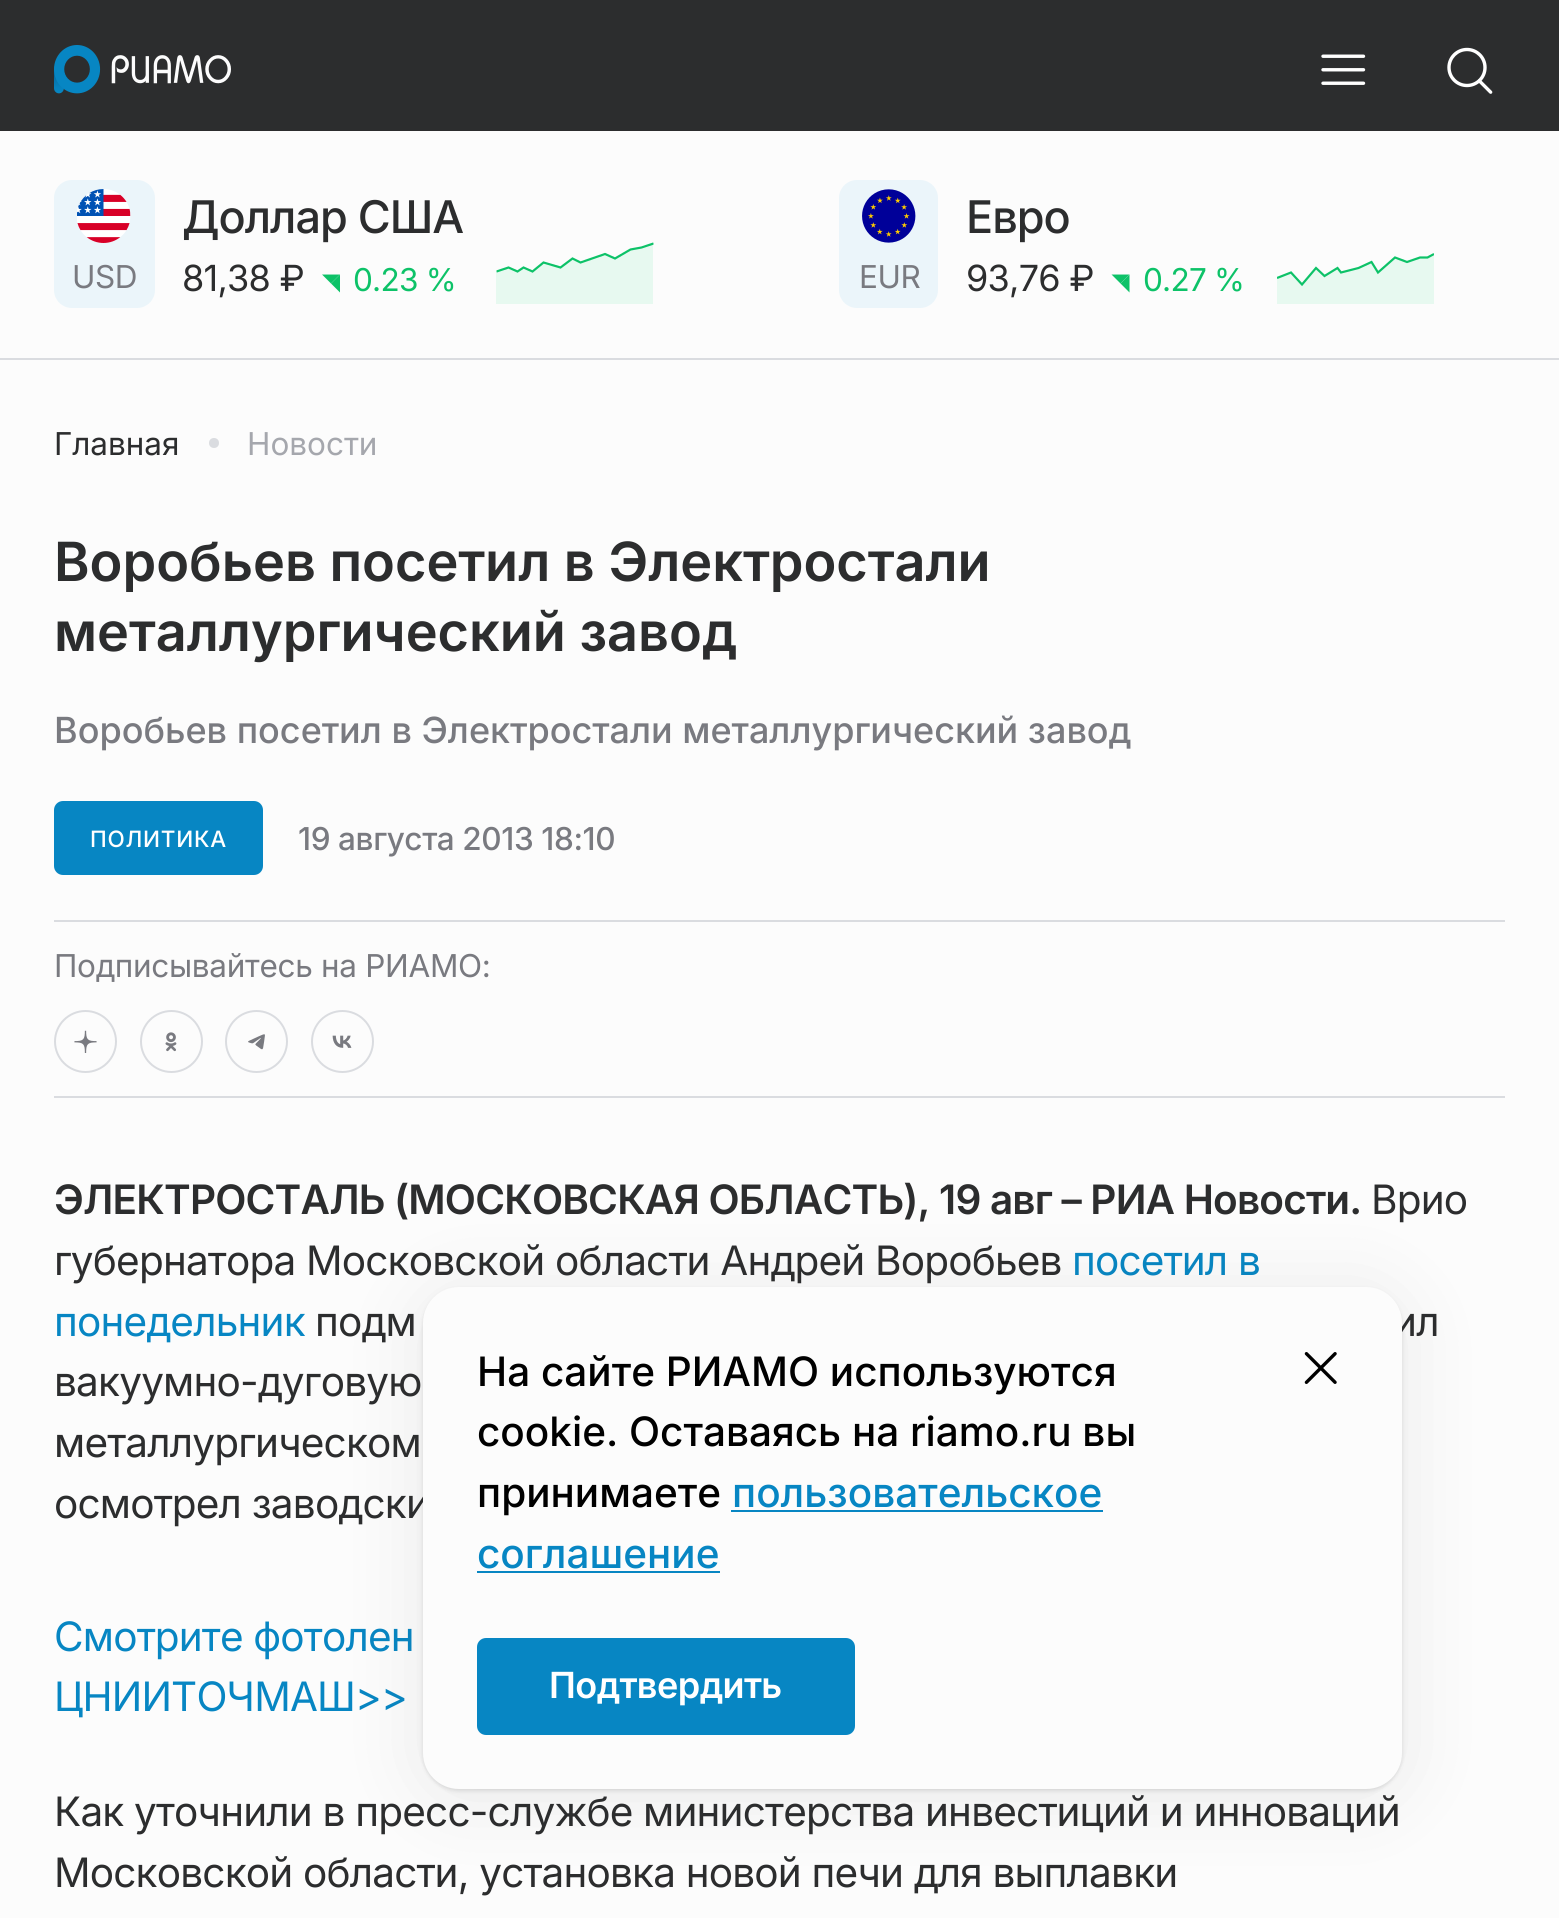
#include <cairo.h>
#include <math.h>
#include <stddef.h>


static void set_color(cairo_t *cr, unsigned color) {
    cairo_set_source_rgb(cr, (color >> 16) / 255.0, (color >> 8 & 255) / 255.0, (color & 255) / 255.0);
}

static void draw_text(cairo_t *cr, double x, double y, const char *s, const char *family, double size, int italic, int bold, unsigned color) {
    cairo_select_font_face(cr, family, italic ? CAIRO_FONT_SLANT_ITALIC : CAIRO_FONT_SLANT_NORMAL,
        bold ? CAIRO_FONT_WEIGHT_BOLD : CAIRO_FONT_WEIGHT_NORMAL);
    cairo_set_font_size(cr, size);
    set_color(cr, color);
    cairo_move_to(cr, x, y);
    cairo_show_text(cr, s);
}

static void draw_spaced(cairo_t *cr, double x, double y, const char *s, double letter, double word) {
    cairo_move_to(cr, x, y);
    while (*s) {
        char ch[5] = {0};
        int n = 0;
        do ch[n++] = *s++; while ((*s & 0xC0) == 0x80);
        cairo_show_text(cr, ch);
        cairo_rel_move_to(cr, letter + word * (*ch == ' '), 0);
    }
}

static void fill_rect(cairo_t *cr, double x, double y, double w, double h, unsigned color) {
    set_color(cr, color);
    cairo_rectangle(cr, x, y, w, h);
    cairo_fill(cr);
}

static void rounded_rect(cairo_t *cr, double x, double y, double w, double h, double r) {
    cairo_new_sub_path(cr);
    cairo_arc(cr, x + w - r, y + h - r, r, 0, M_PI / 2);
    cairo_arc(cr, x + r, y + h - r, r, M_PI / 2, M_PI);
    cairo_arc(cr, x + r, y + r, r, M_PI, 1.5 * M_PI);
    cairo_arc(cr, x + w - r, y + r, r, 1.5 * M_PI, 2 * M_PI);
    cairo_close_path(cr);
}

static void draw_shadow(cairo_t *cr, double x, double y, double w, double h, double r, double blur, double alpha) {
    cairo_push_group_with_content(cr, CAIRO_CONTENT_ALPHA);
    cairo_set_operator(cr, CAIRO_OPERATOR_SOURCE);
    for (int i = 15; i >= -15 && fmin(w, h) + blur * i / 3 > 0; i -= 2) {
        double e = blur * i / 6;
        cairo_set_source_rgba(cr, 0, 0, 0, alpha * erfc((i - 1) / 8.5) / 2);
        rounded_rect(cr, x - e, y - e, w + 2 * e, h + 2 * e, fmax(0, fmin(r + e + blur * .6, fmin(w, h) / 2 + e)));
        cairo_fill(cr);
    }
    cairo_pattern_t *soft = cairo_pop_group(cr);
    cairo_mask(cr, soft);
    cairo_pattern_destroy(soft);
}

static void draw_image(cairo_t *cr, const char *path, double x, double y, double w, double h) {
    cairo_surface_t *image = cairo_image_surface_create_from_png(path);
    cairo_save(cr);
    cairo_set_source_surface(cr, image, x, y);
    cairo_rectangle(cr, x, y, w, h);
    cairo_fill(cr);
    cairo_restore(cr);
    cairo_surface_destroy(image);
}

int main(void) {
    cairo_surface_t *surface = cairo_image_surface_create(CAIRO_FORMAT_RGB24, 1559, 1918);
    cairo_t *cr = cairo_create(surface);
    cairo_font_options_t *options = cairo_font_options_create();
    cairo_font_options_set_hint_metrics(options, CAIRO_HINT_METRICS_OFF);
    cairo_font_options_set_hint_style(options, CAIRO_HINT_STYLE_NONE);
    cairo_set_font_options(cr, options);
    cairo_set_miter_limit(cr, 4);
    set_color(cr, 0xFCFCFC);
    cairo_paint(cr);
    fill_rect(cr, 0, 0, 1559, 131, 0x2C2D2E);
    draw_image(cr, "assets/img1.png", 54, 45, 177, 49);
    draw_image(cr, "assets/img2.png", 1321, 54, 45, 31);
    draw_image(cr, "assets/img3.png", 1447, 47, 46, 47);
    fill_rect(cr, 0, 358, 1559, 2, 0xDADCE0);
    set_color(cr, 0xEBF5FA);
    rounded_rect(cr, 54, 180, 101, 128, 18);
    cairo_fill(cr);
    draw_image(cr, "assets/img4.png", 77, 189, 54, 54);
    cairo_select_font_face(cr, "Inter", CAIRO_FONT_SLANT_NORMAL, CAIRO_FONT_WEIGHT_NORMAL);
    cairo_set_font_size(cr, 31.5);
    set_color(cr, 0x797A80);
    draw_spaced(cr, 72, 288, "USD", -0.5, 0);
    cairo_select_font_face(cr, "Inter Medium", CAIRO_FONT_SLANT_NORMAL, CAIRO_FONT_WEIGHT_NORMAL);
    cairo_set_font_size(cr, 45);
    set_color(cr, 0x2C2D2E);
    draw_spaced(cr, 182, 233, "Доллар США", -1, 0);
    cairo_select_font_face(cr, "Inter", CAIRO_FONT_SLANT_NORMAL, CAIRO_FONT_WEIGHT_NORMAL);
    cairo_set_font_size(cr, 36);
    draw_spaced(cr, 182, 291, "81,38 ₽", -0.75, 0);
    set_color(cr, 0x0DC268);
    cairo_new_path(cr);
    cairo_move_to(cr, 322, 274.5);
    cairo_line_to(cr, 340, 274.5);
    cairo_line_to(cr, 331, 283.5);
    cairo_close_path(cr);
    cairo_fill(cr);
    cairo_new_path(cr);
    cairo_move_to(cr, 340, 274.5);
    cairo_line_to(cr, 340, 292.5);
    cairo_line_to(cr, 331, 283.5);
    cairo_close_path(cr);
    cairo_fill(cr);
    cairo_set_font_size(cr, 31.5);
    draw_spaced(cr, 353, 291, "0.23 %", -0.75, 0);
    set_color(cr, 0xE7F9F0);
    cairo_new_path(cr);
    cairo_move_to(cr, 509, 268);
    cairo_line_to(cr, 517, 272);
    cairo_line_to(cr, 524, 268);
    cairo_line_to(cr, 532, 272);
    cairo_line_to(cr, 544, 263);
    cairo_line_to(cr, 560, 268);
    cairo_line_to(cr, 573, 259);
    cairo_line_to(cr, 581, 263);
    cairo_line_to(cr, 605, 254);
    cairo_line_to(cr, 615, 259);
    cairo_line_to(cr, 631, 250);
    cairo_line_to(cr, 642, 247);
    cairo_line_to(cr, 653, 243);
    cairo_line_to(cr, 653, 304);
    cairo_line_to(cr, 496, 304);
    cairo_line_to(cr, 496, 272);
    cairo_close_path(cr);
    cairo_fill(cr);
    cairo_save(cr);
    cairo_new_path(cr);
    cairo_move_to(cr, 496.5, 205);
    cairo_line_to(cr, 653.5, 205);
    cairo_line_to(cr, 653.5, 304);
    cairo_line_to(cr, 496.5, 304);
    cairo_close_path(cr);
    cairo_clip(cr);
    cairo_new_path(cr);
    cairo_move_to(cr, 496.5, 271.5);
    cairo_line_to(cr, 508.5, 267.5);
    cairo_line_to(cr, 517.5, 271.5);
    cairo_line_to(cr, 523.5, 267.5);
    cairo_line_to(cr, 532.5, 271.5);
    cairo_line_to(cr, 543.5, 262.5);
    cairo_line_to(cr, 560.5, 267.5);
    cairo_line_to(cr, 572.5, 258.5);
    cairo_line_to(cr, 580.5, 262.5);
    cairo_line_to(cr, 605, 254);
    cairo_line_to(cr, 615, 258.5);
    cairo_line_to(cr, 630.5, 249.5);
    cairo_line_to(cr, 641.5, 247.5);
    cairo_line_to(cr, 653.5, 243.5);
    set_color(cr, 0x0DC268);
    cairo_set_line_width(cr, 2.2);
    cairo_stroke(cr);
    cairo_restore(cr);
    set_color(cr, 0xEBF5FA);
    rounded_rect(cr, 839, 180, 99, 128, 18);
    cairo_fill(cr);
    draw_image(cr, "assets/img5.png", 862, 189, 54, 54);
    set_color(cr, 0x797A80);
    draw_spaced(cr, 859, 288, "EUR", -0.5, 0);
    cairo_select_font_face(cr, "Inter Medium", CAIRO_FONT_SLANT_NORMAL, CAIRO_FONT_WEIGHT_NORMAL);
    cairo_set_font_size(cr, 45);
    set_color(cr, 0x2C2D2E);
    draw_spaced(cr, 966, 233, "Евро", -1, 0);
    cairo_select_font_face(cr, "Inter", CAIRO_FONT_SLANT_NORMAL, CAIRO_FONT_WEIGHT_NORMAL);
    cairo_set_font_size(cr, 36);
    draw_spaced(cr, 966, 291, "93,76 ₽", -0.75, 0);
    set_color(cr, 0x0DC268);
    cairo_new_path(cr);
    cairo_move_to(cr, 1111.5, 274.5);
    cairo_line_to(cr, 1129.5, 274.5);
    cairo_line_to(cr, 1120.5, 283.5);
    cairo_close_path(cr);
    cairo_fill(cr);
    cairo_new_path(cr);
    cairo_move_to(cr, 1129.5, 274.5);
    cairo_line_to(cr, 1129.5, 292.5);
    cairo_line_to(cr, 1120.5, 283.5);
    cairo_close_path(cr);
    cairo_fill(cr);
    cairo_set_font_size(cr, 31.5);
    draw_spaced(cr, 1143, 291, "0.27 %", -0.75, 0);
    set_color(cr, 0xE7F9F0);
    cairo_new_path(cr);
    cairo_move_to(cr, 1291, 272);
    cairo_line_to(cr, 1302, 284);
    cairo_line_to(cr, 1316, 268);
    cairo_line_to(cr, 1325, 275);
    cairo_line_to(cr, 1338, 268);
    cairo_line_to(cr, 1341, 272);
    cairo_line_to(cr, 1358, 268);
    cairo_line_to(cr, 1371, 262);
    cairo_line_to(cr, 1378, 272);
    cairo_line_to(cr, 1395, 257);
    cairo_line_to(cr, 1407, 262);
    cairo_line_to(cr, 1420, 257);
    cairo_line_to(cr, 1428, 257);
    cairo_line_to(cr, 1434, 254);
    cairo_line_to(cr, 1434, 304);
    cairo_line_to(cr, 1277, 304);
    cairo_line_to(cr, 1277, 277);
    cairo_close_path(cr);
    cairo_fill(cr);
    cairo_save(cr);
    cairo_new_path(cr);
    cairo_move_to(cr, 1277, 205);
    cairo_line_to(cr, 1434, 205);
    cairo_line_to(cr, 1434, 304);
    cairo_line_to(cr, 1277, 304);
    cairo_close_path(cr);
    cairo_clip(cr);
    cairo_new_path(cr);
    cairo_move_to(cr, 1277, 278);
    cairo_line_to(cr, 1291, 272.5);
    cairo_line_to(cr, 1302, 284.5);
    cairo_line_to(cr, 1316, 268);
    cairo_line_to(cr, 1324.5, 276);
    cairo_line_to(cr, 1337.5, 268);
    cairo_line_to(cr, 1341, 272.5);
    cairo_line_to(cr, 1358.5, 268);
    cairo_line_to(cr, 1371.5, 262);
    cairo_line_to(cr, 1378, 272.5);
    cairo_line_to(cr, 1395, 257.5);
    cairo_line_to(cr, 1407, 262);
    cairo_line_to(cr, 1420, 257.5);
    cairo_line_to(cr, 1427.5, 257.5);
    cairo_line_to(cr, 1434, 254);
    set_color(cr, 0x0DC268);
    cairo_set_line_width(cr, 2.2);
    cairo_stroke(cr);
    cairo_restore(cr);
    draw_text(cr, 54, 455, "Главная", "Inter", 31.5, 0, 0, 0x2C2D2E);
    set_color(cr, 0xDADCE0);
    cairo_new_path(cr);
    cairo_arc(cr, 214, 443, 5, 0, 2 * M_PI);
    cairo_fill(cr);
    draw_text(cr, 247, 455, "Новости", "Inter", 31.5, 0, 0, 0xA5A7AD);
    draw_text(cr, 54, 581, "Воробьев посетил в Электростали", "Inter SemiBold", 54, 0, 0, 0x2C2D2E);
    draw_text(cr, 54, 651, "металлургический завод", "Inter SemiBold", 54, 0, 0, 0x2C2D2E);
    draw_text(cr, 54, 743, "Воробьев посетил в Электростали металлургический завод", "Inter Medium", 36, 0, 0, 0x797A80);
    set_color(cr, 0x0786C3);
    rounded_rect(cr, 54, 801, 209, 74, 9);
    cairo_fill(cr);
    cairo_set_font_size(cr, 22.5);
    set_color(cr, 0xFFFFFF);
    draw_spaced(cr, 90, 847, "ПОЛИТИКА", 0.75, 0);
    cairo_set_font_size(cr, 31.5);
    set_color(cr, 0x797A80);
    draw_spaced(cr, 298, 850, "19 августа 2013 18:10", -0.4, 0);
    fill_rect(cr, 54, 920, 1451, 2, 0xDADCE0);
    fill_rect(cr, 54, 1096, 1451, 2, 0xDADCE0);
    cairo_select_font_face(cr, "Inter", CAIRO_FONT_SLANT_NORMAL, CAIRO_FONT_WEIGHT_NORMAL);
    set_color(cr, 0x797A80);
    draw_spaced(cr, 54, 977, "Подписывайтесь на РИАМО:", -0.3, 0);
    cairo_new_path(cr);
    cairo_arc(cr, 85.5, 1041.5, 30.5, 0, 2 * M_PI);
    set_color(cr, 0xDADCE0);
    cairo_stroke(cr);
    draw_image(cr, "assets/img6.png", 74, 1030, 23, 23);
    cairo_arc(cr, 171.5, 1041.5, 30.5, 0, 2 * M_PI);
    cairo_stroke(cr);
    draw_image(cr, "assets/img7.png", 165, 1032, 12, 20);
    cairo_arc(cr, 256.5, 1041.5, 30.5, 0, 2 * M_PI);
    cairo_stroke(cr);
    draw_image(cr, "assets/img8.png", 248, 1034, 17, 16);
    cairo_arc(cr, 342.5, 1041.5, 30.5, 0, 2 * M_PI);
    cairo_stroke(cr);
    draw_image(cr, "assets/img9.png", 332, 1035, 20, 13);
    cairo_select_font_face(cr, "Inter SemiBold", CAIRO_FONT_SLANT_NORMAL, CAIRO_FONT_WEIGHT_NORMAL);
    cairo_set_font_size(cr, 40.5);
    set_color(cr, 0x2C2D2E);
    draw_spaced(cr, 54, 1214, "ЭЛЕКТРОСТАЛЬ (МОСКОВСКАЯ ОБЛАСТЬ), 19 авг – РИА Новости.", -0.8, 0);
    cairo_select_font_face(cr, "Inter", CAIRO_FONT_SLANT_NORMAL, CAIRO_FONT_WEIGHT_NORMAL);
    draw_spaced(cr, 1371, 1214, "Врио", -0.8, 0);
    draw_spaced(cr, 54, 1275, "губернатора Московской области Андрей Воробьев", -0.8, 0);
    set_color(cr, 0x0786C3);
    draw_spaced(cr, 1072, 1275, "посетил в", -0.8, 0);
    draw_spaced(cr, 54, 1336, "понедельник", -0.8, 0);
    set_color(cr, 0x2C2D2E);
    draw_spaced(cr, 315, 1336, "подм", -0.8, 0);
    draw_spaced(cr, 1393, 1336, "ил", -0.8, 0);
    draw_spaced(cr, 54, 1396, "вакуумно-дуговую", -0.8, 0);
    draw_spaced(cr, 54, 1457, "металлургическом", -0.8, 0);
    draw_spaced(cr, 54, 1518, "осмотрел заводски", -0.8, 0);
    set_color(cr, 0x0786C3);
    draw_spaced(cr, 54, 1651, "Смотрите фотолен", -0.8, 0);
    draw_spaced(cr, 54, 1711, "ЦНИИТОЧМАШ>>", -0.8, 0);
    set_color(cr, 0x2C2D2E);
    draw_spaced(cr, 54, 1826, "Как уточнили в пресс-службе министерства инвестиций и инноваций", -0.8, 0);
    draw_spaced(cr, 54, 1887, "Московской области, установка новой печи для выплавки", -0.8, 0);
    set_color(cr, 0x2C2D2E);
    draw_shadow(cr, 423, 1289, 979, 502, 36, 2, 0.14);
    draw_shadow(cr, 423, 1294, 979, 502, 36, 38, 0.1);
    set_color(cr, 0xFCFCFC);
    rounded_rect(cr, 423, 1287, 979, 502, 36);
    cairo_fill(cr);
    draw_text(cr, 477, 1386, "На сайте РИАМО используются", "Inter Medium", 40.5, 0, 0, 0x000000);
    draw_text(cr, 477, 1446, "cookie. Оставаясь на riamo.ru вы", "Inter Medium", 40.5, 0, 0, 0x000000);
    draw_text(cr, 477, 1507, "принимаете", "Inter Medium", 40.5, 0, 0, 0x000000);
    draw_text(cr, 732, 1507, "пользовательское", "Inter Medium", 40.5, 0, 0, 0x0786C3);
    fill_rect(cr, 731, 1510, 372, 2, 0x0786C3);
    draw_text(cr, 477, 1568, "соглашение", "Inter Medium", 40.5, 0, 0, 0x0786C3);
    fill_rect(cr, 477, 1571, 243, 2, 0x0786C3);
    draw_image(cr, "assets/img10.png", 1304, 1352, 33, 32);
    rounded_rect(cr, 477, 1638, 378, 97, 9);
    cairo_fill(cr);
    cairo_select_font_face(cr, "Inter SemiBold", CAIRO_FONT_SLANT_NORMAL, CAIRO_FONT_WEIGHT_NORMAL);
    cairo_set_font_size(cr, 36);
    set_color(cr, 0xFFFFFF);
    draw_spaced(cr, 549, 1698, "Подтвердить", -0.5, 0);
    cairo_surface_write_to_png(surface, "output.png");
    cairo_font_options_destroy(options);
    cairo_destroy(cr);
    cairo_surface_destroy(surface);
    return 0;
}
